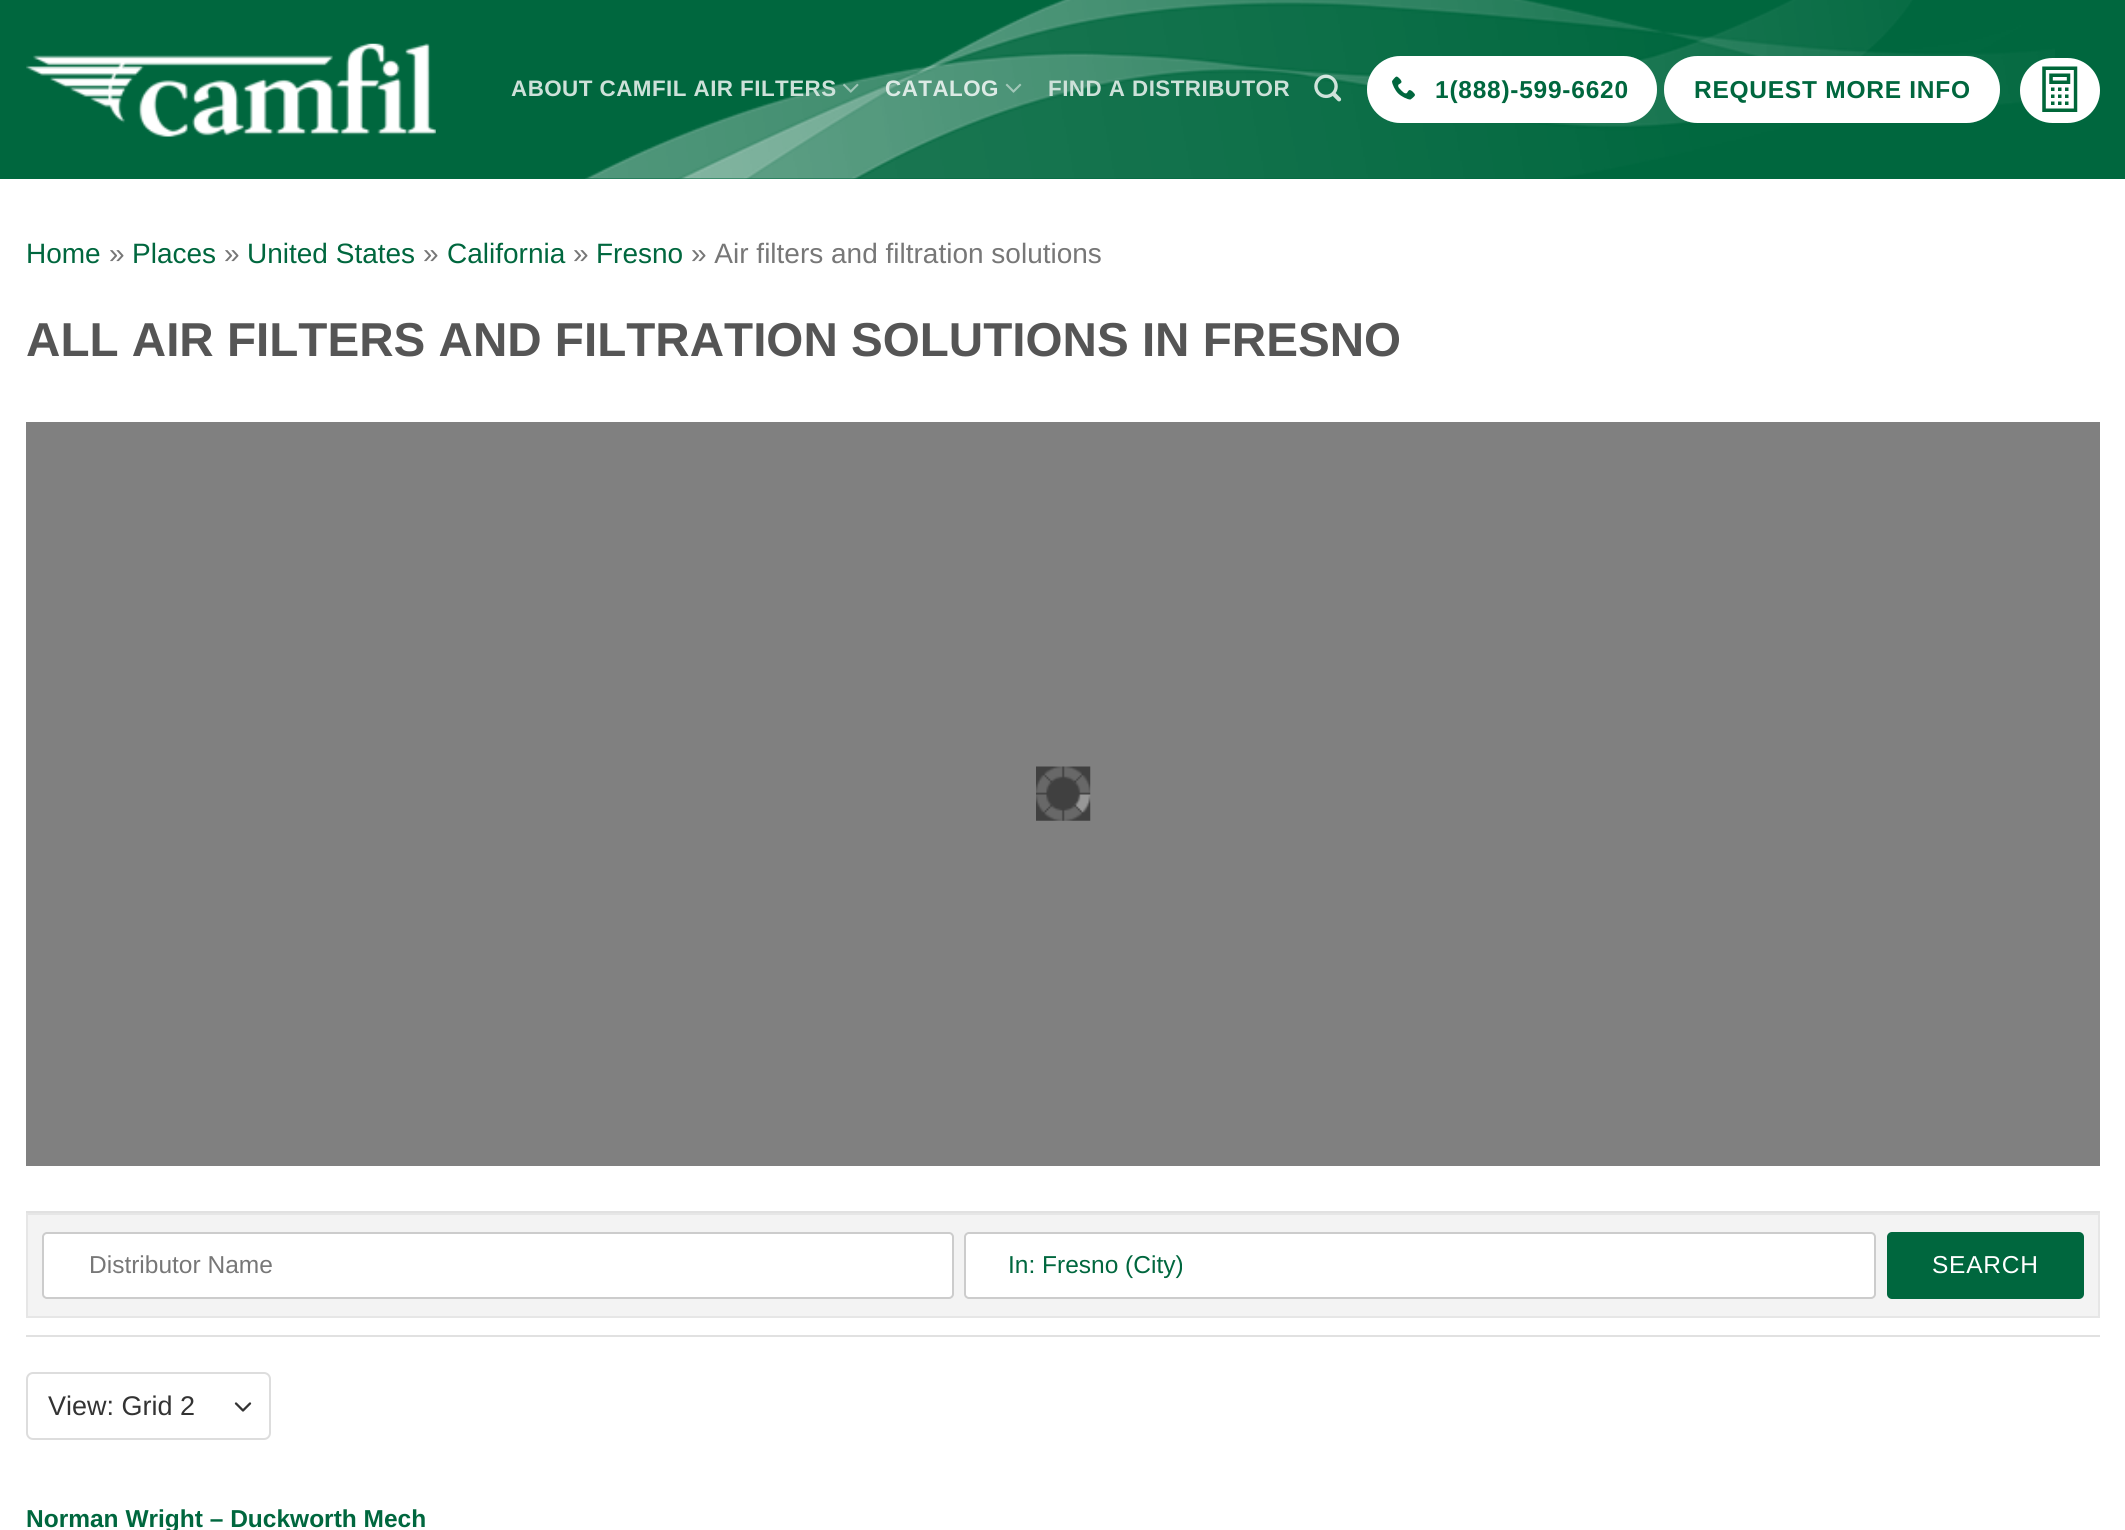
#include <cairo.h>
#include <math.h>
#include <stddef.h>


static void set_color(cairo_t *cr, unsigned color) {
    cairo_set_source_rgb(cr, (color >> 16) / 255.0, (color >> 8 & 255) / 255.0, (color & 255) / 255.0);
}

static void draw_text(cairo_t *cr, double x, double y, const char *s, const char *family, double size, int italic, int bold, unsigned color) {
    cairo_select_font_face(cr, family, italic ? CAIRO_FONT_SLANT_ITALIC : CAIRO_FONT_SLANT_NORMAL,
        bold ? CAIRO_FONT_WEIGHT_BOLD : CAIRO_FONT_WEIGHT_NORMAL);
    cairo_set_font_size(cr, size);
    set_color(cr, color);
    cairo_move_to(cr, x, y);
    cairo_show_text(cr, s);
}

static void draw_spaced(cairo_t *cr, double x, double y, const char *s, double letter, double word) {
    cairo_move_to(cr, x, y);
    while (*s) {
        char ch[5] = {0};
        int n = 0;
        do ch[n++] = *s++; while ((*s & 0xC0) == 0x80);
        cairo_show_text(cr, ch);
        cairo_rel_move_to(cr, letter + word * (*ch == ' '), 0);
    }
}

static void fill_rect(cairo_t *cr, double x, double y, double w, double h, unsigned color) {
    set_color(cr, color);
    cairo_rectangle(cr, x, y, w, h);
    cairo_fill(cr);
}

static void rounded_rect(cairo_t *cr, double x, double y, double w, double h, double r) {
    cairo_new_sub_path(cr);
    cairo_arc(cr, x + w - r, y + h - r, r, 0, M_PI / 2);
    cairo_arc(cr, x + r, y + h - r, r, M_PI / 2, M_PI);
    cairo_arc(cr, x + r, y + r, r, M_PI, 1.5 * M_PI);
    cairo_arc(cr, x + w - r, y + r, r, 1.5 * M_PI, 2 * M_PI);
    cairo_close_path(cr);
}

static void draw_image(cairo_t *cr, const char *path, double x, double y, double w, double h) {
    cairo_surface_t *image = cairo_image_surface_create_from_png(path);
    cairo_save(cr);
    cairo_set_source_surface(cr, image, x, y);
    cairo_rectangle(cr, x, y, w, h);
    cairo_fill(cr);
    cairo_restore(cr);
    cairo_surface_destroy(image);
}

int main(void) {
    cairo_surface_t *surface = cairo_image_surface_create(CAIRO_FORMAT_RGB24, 2125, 1530);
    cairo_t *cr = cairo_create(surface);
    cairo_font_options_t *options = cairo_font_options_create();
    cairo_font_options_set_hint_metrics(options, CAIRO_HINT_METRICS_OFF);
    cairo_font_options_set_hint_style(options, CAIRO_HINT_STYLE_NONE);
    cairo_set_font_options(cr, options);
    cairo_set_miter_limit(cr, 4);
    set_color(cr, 0xFFFFFF);
    cairo_paint(cr);
    fill_rect(cr, 0, 0, 2125, 179, 0x00673E);
    draw_image(cr, "assets/img1.png", 585, 0, 1470, 179);
    draw_image(cr, "assets/img2.png", 26, 43, 410, 94);
    cairo_select_font_face(cr, "Liberation Sans", CAIRO_FONT_SLANT_NORMAL, CAIRO_FONT_WEIGHT_BOLD);
    cairo_set_font_size(cr, 22.4);
    set_color(cr, 0xCDE1D9);
    draw_spaced(cr, 511, 96, "ABOUT CAMFIL AIR FILTERS", 0.45, 0);
    draw_image(cr, "assets/img3.png", 843, 83, 16, 10);
    set_color(cr, 0xDCEAE5);
    draw_spaced(cr, 885, 96, "CATALOG", 0.45, 0);
    draw_image(cr, "assets/img4.png", 1005, 83, 17, 10);
    set_color(cr, 0xCDE1D9);
    draw_spaced(cr, 1048, 96, "FIND A DISTRIBUTOR", 0.45, 0);
    draw_image(cr, "assets/img5.png", 1314, 74, 28, 28);
    set_color(cr, 0xFFFFFF);
    rounded_rect(cr, 1367, 56, 290, 67, 33.5);
    cairo_fill(cr);
    rounded_rect(cr, 1369, 58, 286, 63, 31.5);
    cairo_set_source_rgba(cr, 1, 1, 1, 0.2);
    cairo_set_line_width(cr, 4);
    cairo_stroke(cr);
    draw_image(cr, "assets/img6.png", 1392, 76, 23, 24);
    cairo_set_font_size(cr, 24.5);
    set_color(cr, 0x00673E);
    draw_spaced(cr, 1435, 98, "1(888)-599-6620", 0.75, 0);
    set_color(cr, 0xFFFFFF);
    rounded_rect(cr, 1664, 56, 336, 67, 33.5);
    cairo_fill(cr);
    rounded_rect(cr, 1666, 58, 332, 63, 31.5);
    cairo_set_source_rgba(cr, 1, 1, 1, 0.2);
    cairo_stroke(cr);
    set_color(cr, 0x00673E);
    draw_spaced(cr, 1694, 98, "REQUEST MORE INFO", 0.75, 0);
    set_color(cr, 0xFFFFFF);
    rounded_rect(cr, 2020, 58, 80, 65, 32.5);
    cairo_fill(cr);
    draw_image(cr, "assets/img7.png", 2042, 66, 36, 46);
    draw_text(cr, 26, 263, "Home", "Liberation Sans", 28, 0, 0, 0x00673E);
    draw_text(cr, 109, 263, "»", "Liberation Sans", 28, 0, 0, 0x777777);
    draw_text(cr, 132, 263, "Places", "Liberation Sans", 28, 0, 0, 0x00673E);
    draw_text(cr, 224, 263, "»", "Liberation Sans", 28, 0, 0, 0x777777);
    draw_text(cr, 247, 263, "United States", "Liberation Sans", 28, 0, 0, 0x00673E);
    draw_text(cr, 423, 263, "»", "Liberation Sans", 28, 0, 0, 0x777777);
    draw_text(cr, 447, 263, "California", "Liberation Sans", 28, 0, 0, 0x00673E);
    draw_text(cr, 573, 263, "»", "Liberation Sans", 28, 0, 0, 0x777777);
    draw_text(cr, 596, 263, "Fresno", "Liberation Sans", 28, 0, 0, 0x00673E);
    draw_text(cr, 691, 263, "» Air filters and filtration solutions", "Liberation Sans", 28, 0, 0, 0x777777);
    draw_text(cr, 26, 356, "ALL AIR FILTERS AND FILTRATION SOLUTIONS IN FRESNO", "Liberation Sans", 47.6, 0, 1, 0x555555);
    fill_rect(cr, 26, 422, 2074, 744, 0x808080);
    draw_image(cr, "assets/img8.png", 1036, 766, 55, 55);
    fill_rect(cr, 26, 1211, 2074, 2, 0xE1E1E1);
    fill_rect(cr, 26, 1335, 2074, 2, 0xE1E1E1);
    set_color(cr, 0xF3F3F3);
    cairo_rectangle(cr, 27, 1214, 2072, 103);
    cairo_fill_preserve(cr);
    set_color(cr, 0xE6E6E6);
    cairo_set_line_width(cr, 2);
    cairo_stroke(cr);
    set_color(cr, 0xFFFFFF);
    rounded_rect(cr, 43, 1233, 910, 65, 4);
    cairo_fill_preserve(cr);
    set_color(cr, 0xCCCCCC);
    cairo_stroke(cr);
    draw_text(cr, 89, 1273, "Distributor Name", "Liberation Sans", 24.5, 0, 0, 0x777777);
    set_color(cr, 0xFFFFFF);
    rounded_rect(cr, 965, 1233, 910, 65, 4);
    cairo_fill_preserve(cr);
    set_color(cr, 0xCCCCCC);
    cairo_stroke(cr);
    draw_text(cr, 1008, 1273, "In: Fresno (City)", "Liberation Sans", 24.5, 0, 0, 0x00673E);
    rounded_rect(cr, 1887, 1232, 197, 67, 5);
    cairo_fill(cr);
    set_color(cr, 0xFFFFFF);
    draw_spaced(cr, 1932, 1273, "SEARCH", 0.75, 0);
    cairo_new_path(cr);
    cairo_move_to(cr, 236, 1403.5);
    cairo_line_to(cr, 243, 1410.5);
    cairo_line_to(cr, 250, 1403.5);
    set_color(cr, 0x333333);
    cairo_set_line_width(cr, 2.3);
    cairo_set_line_cap(cr, CAIRO_LINE_CAP_ROUND);
    cairo_set_line_join(cr, CAIRO_LINE_JOIN_ROUND);
    cairo_stroke(cr);
    rounded_rect(cr, 27, 1373, 243, 66, 6);
    set_color(cr, 0xDDDDDD);
    cairo_set_line_width(cr, 2);
    cairo_set_line_cap(cr, CAIRO_LINE_CAP_BUTT);
    cairo_set_line_join(cr, CAIRO_LINE_JOIN_MITER);
    cairo_stroke(cr);
    draw_text(cr, 48, 1415, "View: Grid 2", "Liberation Sans", 27, 0, 0, 0x333333);
    draw_text(cr, 26, 1527, "Norman Wright – Duckworth Mech", "Liberation Sans", 24.5, 0, 1, 0x00673E);
    cairo_surface_write_to_png(surface, "output.png");
    cairo_font_options_destroy(options);
    cairo_destroy(cr);
    cairo_surface_destroy(surface);
    return 0;
}
